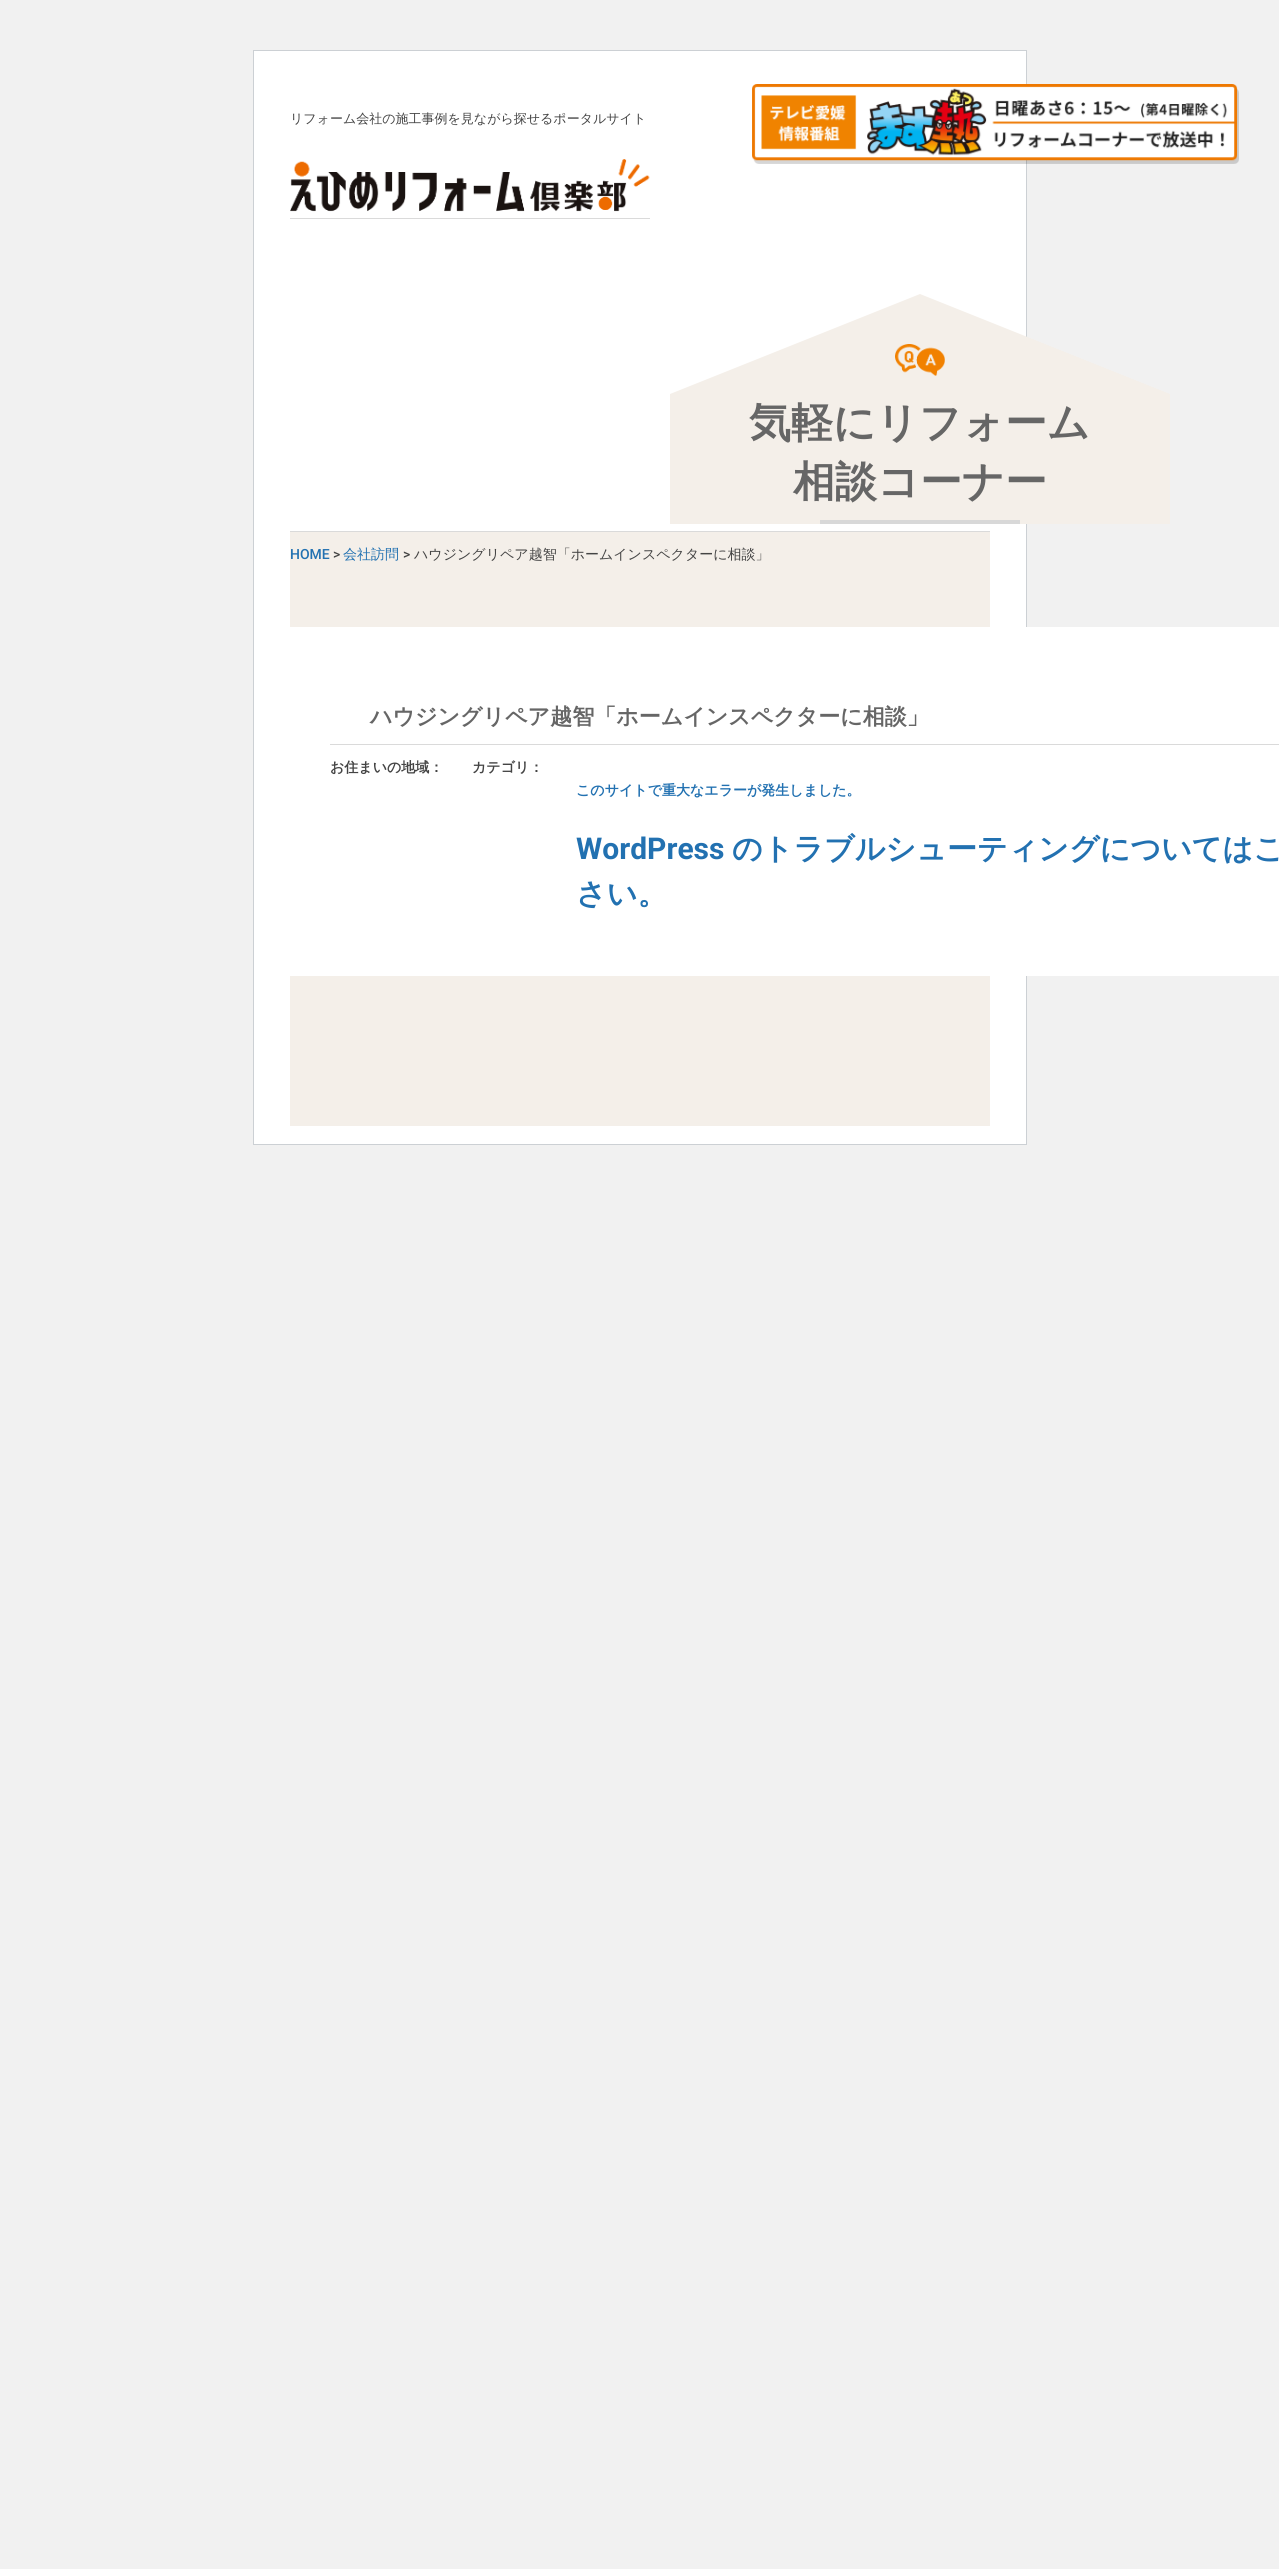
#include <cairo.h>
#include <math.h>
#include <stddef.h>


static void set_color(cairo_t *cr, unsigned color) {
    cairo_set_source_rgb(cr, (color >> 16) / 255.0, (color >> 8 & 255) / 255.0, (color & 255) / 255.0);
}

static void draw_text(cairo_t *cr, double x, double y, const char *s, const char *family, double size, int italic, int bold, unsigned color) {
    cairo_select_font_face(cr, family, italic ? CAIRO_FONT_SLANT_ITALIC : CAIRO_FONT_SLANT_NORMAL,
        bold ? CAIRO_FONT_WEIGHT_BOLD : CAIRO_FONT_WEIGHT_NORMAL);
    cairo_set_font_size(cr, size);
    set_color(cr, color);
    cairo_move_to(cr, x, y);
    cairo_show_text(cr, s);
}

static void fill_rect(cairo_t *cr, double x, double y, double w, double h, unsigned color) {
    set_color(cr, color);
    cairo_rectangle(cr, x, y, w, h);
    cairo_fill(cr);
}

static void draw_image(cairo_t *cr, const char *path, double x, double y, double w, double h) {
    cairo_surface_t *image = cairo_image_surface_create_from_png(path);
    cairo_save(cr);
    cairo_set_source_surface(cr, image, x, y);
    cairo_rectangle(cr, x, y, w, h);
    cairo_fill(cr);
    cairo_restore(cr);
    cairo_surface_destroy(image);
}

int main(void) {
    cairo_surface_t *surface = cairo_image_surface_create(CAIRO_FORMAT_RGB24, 1279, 2569);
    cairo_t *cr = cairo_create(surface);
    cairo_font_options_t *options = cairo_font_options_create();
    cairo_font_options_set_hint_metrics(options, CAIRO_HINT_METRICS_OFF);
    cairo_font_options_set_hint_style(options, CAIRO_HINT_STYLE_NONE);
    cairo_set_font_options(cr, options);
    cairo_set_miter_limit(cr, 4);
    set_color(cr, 0xF1F1F1);
    cairo_paint(cr);
    set_color(cr, 0xFFFFFF);
    cairo_rectangle(cr, 253.5, 50.5, 773, 1094);
    cairo_fill_preserve(cr);
    set_color(cr, 0xCCD0D4);
    cairo_set_line_width(cr, 1);
    cairo_stroke(cr);
    draw_text(cr, 290, 123, "リフォーム会社の施工事例を見ながら探せるポータルサイト", "WenQuanYi Zen Hei Medium", 13, 0, 0, 0x444444);
    fill_rect(cr, 290, 218, 360, 1, 0xDADADA);
    draw_image(cr, "assets/img1.png", 290, 159, 360, 53);
    draw_image(cr, "assets/img2.png", 752, 84, 487, 80);
    fill_rect(cr, 290, 531, 700, 1, 0xDADADA);
    fill_rect(cr, 670, 394, 500, 130, 0xF4EFE9);
    cairo_new_path(cr);
    cairo_move_to(cr, 1170, 394);
    cairo_line_to(cr, 670, 394);
    cairo_line_to(cr, 920, 294);
    cairo_close_path(cr);
    cairo_fill(cr);
    draw_image(cr, "assets/img3.png", 895, 344, 50, 32);
    draw_text(cr, 749, 437, "気軽にリフォーム", "WenQuanYi Zen Hei", 42, 0, 1, 0x666666);
    draw_text(cr, 793, 496, "相談コーナー", "WenQuanYi Zen Hei", 42, 0, 1, 0x666666);
    fill_rect(cr, 820, 520, 200, 4, 0xD8D8D8);
    fill_rect(cr, 290, 532, 700, 594, 0xF4EFE9);
    draw_text(cr, 290, 559, "HOME", "Roboto Medium", 14, 0, 0, 0x2271B1);
    draw_text(cr, 333, 559, ">", "Roboto Medium", 14, 0, 0, 0x444444);
    draw_text(cr, 343, 559, "会社訪問", "WenQuanYi Zen Hei Medium", 14, 0, 0, 0x2271B1);
    draw_text(cr, 403, 559, ">", "Roboto Medium", 14, 0, 0, 0x444444);
    draw_text(cr, 414, 559, "ハウジングリペア越智「ホームインスペクターに相談」", "WenQuanYi Zen Hei Medium", 14, 0, 0, 0x444444);
    fill_rect(cr, 290, 627, 989, 349, 0xFFFFFF);
    fill_rect(cr, 330, 744, 949, 1, 0xDADADA);
    draw_text(cr, 370, 724, "ハウジングリペア越智「ホームインスペクターに相談」", "WenQuanYi Zen Hei", 22, 0, 1, 0x666666);
    draw_text(cr, 330, 772, "お住まいの地域：", "WenQuanYi Zen Hei", 14, 0, 1, 0x444444);
    draw_text(cr, 472, 772, "カテゴリ：", "WenQuanYi Zen Hei", 14, 0, 1, 0x444444);
    draw_text(cr, 576, 795, "このサイトで重大なエラーが発生しました。", "WenQuanYi Zen Hei", 14, 0, 1, 0x2271B1);
    draw_text(cr, 576, 859, "WordPress", "Roboto", 30, 0, 1, 0x2271B1);
    draw_text(cr, 732, 859, "のトラブルシューティングについてはこ", "WenQuanYi Zen Hei", 30, 0, 1, 0x2271B1);
    draw_text(cr, 576, 904, "さい。", "WenQuanYi Zen Hei", 30, 0, 1, 0x2271B1);
    cairo_surface_write_to_png(surface, "output.png");
    cairo_font_options_destroy(options);
    cairo_destroy(cr);
    cairo_surface_destroy(surface);
    return 0;
}
